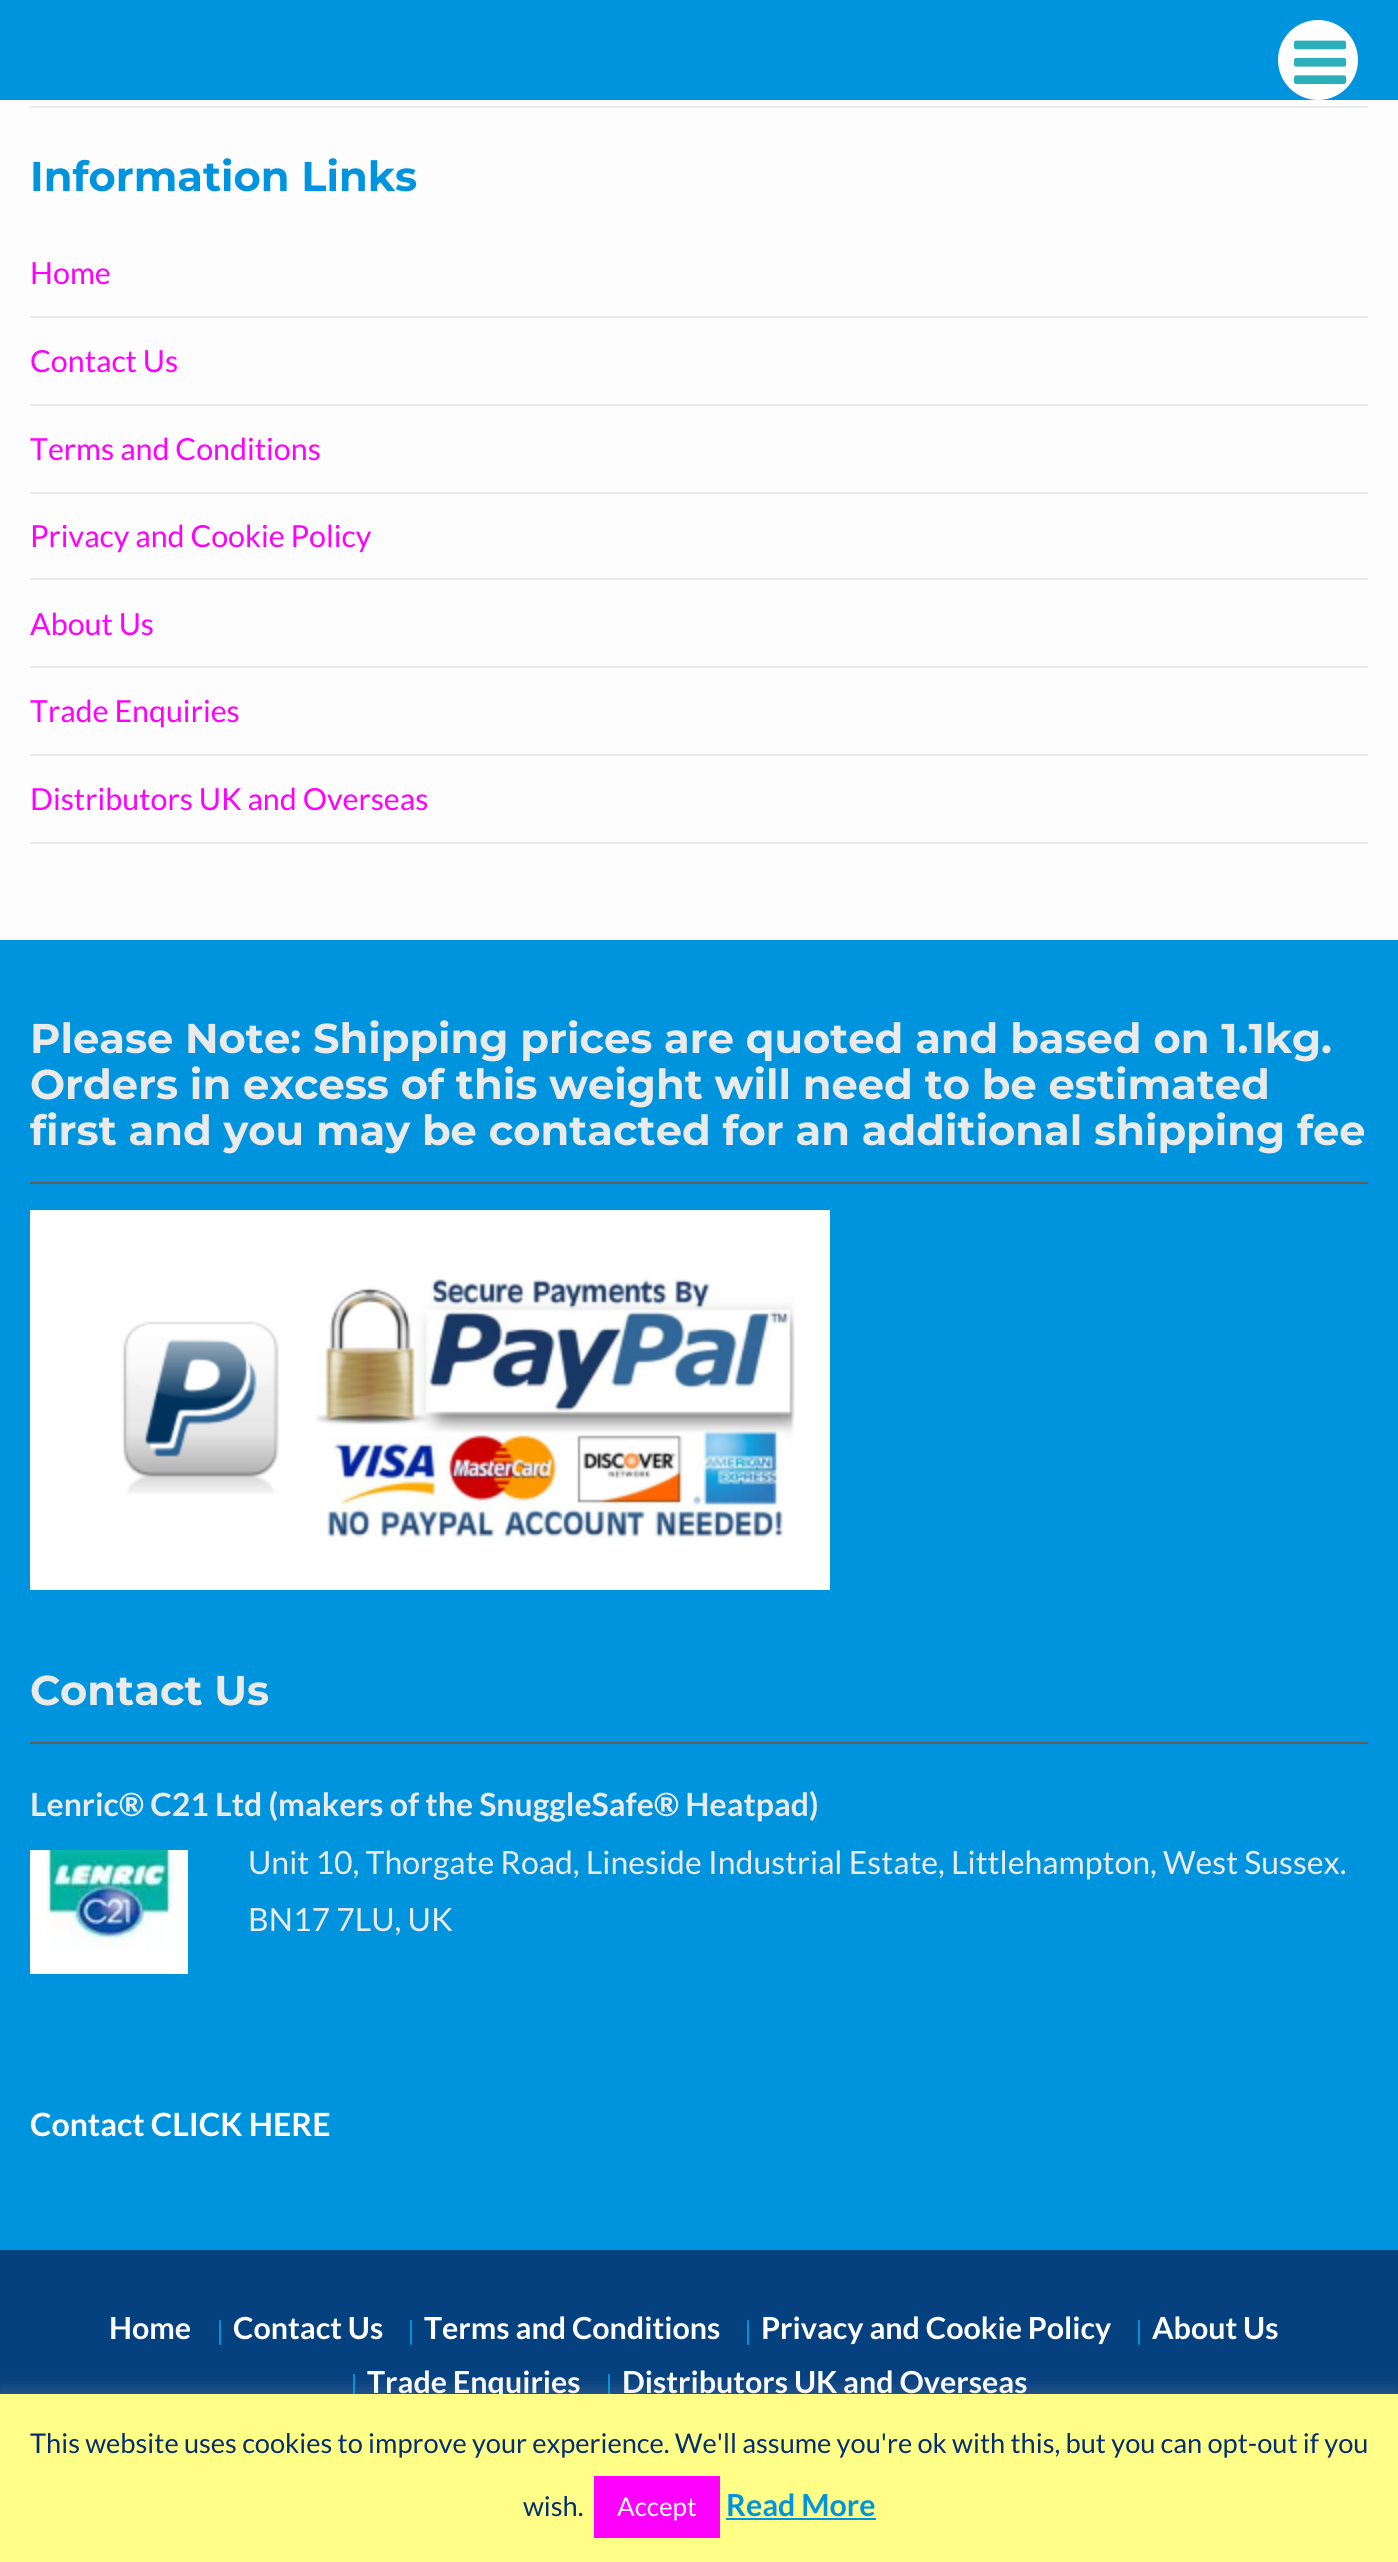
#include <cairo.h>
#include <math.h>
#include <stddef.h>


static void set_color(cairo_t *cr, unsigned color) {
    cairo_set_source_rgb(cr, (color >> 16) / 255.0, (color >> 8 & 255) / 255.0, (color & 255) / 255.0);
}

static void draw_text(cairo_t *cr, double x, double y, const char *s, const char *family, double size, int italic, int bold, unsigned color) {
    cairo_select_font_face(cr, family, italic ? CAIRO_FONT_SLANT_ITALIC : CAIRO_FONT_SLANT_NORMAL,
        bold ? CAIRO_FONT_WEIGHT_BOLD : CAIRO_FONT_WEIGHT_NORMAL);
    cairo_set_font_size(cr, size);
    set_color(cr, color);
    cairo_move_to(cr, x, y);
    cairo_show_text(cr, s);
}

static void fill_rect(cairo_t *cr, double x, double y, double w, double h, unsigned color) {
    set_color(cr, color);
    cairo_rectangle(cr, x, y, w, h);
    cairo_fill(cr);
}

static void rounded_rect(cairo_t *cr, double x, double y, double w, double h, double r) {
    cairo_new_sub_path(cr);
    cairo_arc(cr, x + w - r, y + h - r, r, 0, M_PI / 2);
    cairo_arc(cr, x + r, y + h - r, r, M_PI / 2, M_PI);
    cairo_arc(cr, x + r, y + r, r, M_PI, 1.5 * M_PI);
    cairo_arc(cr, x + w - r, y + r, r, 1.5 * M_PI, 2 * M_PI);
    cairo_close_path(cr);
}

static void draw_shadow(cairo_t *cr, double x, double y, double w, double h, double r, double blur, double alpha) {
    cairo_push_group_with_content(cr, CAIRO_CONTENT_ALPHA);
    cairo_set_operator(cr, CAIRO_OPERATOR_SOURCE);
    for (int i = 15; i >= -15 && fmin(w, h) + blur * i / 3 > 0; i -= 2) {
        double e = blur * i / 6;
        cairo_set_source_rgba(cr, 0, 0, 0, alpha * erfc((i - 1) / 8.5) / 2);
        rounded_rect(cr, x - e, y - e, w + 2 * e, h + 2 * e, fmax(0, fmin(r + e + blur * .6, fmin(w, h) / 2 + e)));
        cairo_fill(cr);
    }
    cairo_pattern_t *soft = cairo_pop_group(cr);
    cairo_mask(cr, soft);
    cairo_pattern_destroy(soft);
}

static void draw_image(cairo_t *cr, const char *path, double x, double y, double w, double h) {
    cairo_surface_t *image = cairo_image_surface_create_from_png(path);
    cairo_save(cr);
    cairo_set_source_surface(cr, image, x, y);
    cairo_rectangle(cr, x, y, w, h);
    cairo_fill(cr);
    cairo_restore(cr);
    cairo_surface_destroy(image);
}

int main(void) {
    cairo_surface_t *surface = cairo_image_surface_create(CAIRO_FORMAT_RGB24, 1398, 2562);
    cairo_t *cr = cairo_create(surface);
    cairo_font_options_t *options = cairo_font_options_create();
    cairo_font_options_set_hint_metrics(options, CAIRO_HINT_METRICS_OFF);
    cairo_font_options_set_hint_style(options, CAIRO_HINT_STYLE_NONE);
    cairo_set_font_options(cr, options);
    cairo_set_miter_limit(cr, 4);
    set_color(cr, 0xFDFDFD);
    cairo_paint(cr);
    fill_rect(cr, 0, 0, 1398, 100, 0x0094DE);
    set_color(cr, 0xFFFFFF);
    cairo_arc(cr, 1318, 60, 40, 0, 2 * M_PI);
    cairo_fill(cr);
    draw_image(cr, "assets/img1.png", 1294, 40, 53, 44);
    fill_rect(cr, 30, 106, 1338, 2, 0xEAEAEA);
    draw_text(cr, 30, 191, "Information Links", "Montserrat", 41.6, 0, 1, 0x0094DE);
    fill_rect(cr, 30, 316, 1338, 2, 0xEAEAEA);
    draw_text(cr, 30, 284, "Home", "Lato", 30.4, 0, 0, 0xFF00FE);
    fill_rect(cr, 30, 404, 1338, 2, 0xEAEAEA);
    draw_text(cr, 30, 372, "Contact Us", "Lato", 30.4, 0, 0, 0xFF00FE);
    fill_rect(cr, 30, 492, 1338, 2, 0xEAEAEA);
    draw_text(cr, 30, 460, "Terms and Conditions", "Lato", 30.4, 0, 0, 0xFF00FE);
    fill_rect(cr, 30, 578, 1338, 2, 0xEAEAEA);
    draw_text(cr, 30, 547, "Privacy and Cookie Policy", "Lato", 30.4, 0, 0, 0xFF00FE);
    fill_rect(cr, 30, 666, 1338, 2, 0xEAEAEA);
    draw_text(cr, 30, 635, "About Us", "Lato", 30.4, 0, 0, 0xFF00FE);
    fill_rect(cr, 30, 754, 1338, 2, 0xEAEAEA);
    draw_text(cr, 30, 722, "Trade Enquiries", "Lato", 30.4, 0, 0, 0xFF00FE);
    fill_rect(cr, 30, 842, 1338, 2, 0xEAEAEA);
    draw_text(cr, 30, 810, "Distributors UK and Overseas", "Lato", 30.4, 0, 0, 0xFF00FE);
    fill_rect(cr, 0, 940, 1398, 1310, 0x0094DE);
    draw_text(cr, 30, 1053, "Please Note: Shipping prices are quoted and based on 1.1kg.", "Montserrat", 41.6, 0, 1, 0xEAEAEA);
    draw_text(cr, 30, 1099, "Orders in excess of this weight will need to be estimated", "Montserrat", 41.6, 0, 1, 0xEAEAEA);
    draw_text(cr, 30, 1145, "first and you may be contacted for an additional shipping fee", "Montserrat", 41.6, 0, 1, 0xEAEAEA);
    fill_rect(cr, 30, 1182, 1338, 2, 0x5F5F5F);
    draw_image(cr, "assets/img2.png", 30, 1210, 800, 380);
    draw_text(cr, 30, 1705, "Contact Us", "Montserrat", 41.6, 0, 1, 0xEAEAEA);
    fill_rect(cr, 30, 1742, 1338, 2, 0x5F5F5F);
    draw_text(cr, 30, 1816, "Lenric® C21 Ltd (makers of the SnuggleSafe® Heatpad)", "Lato", 32, 0, 1, 0xEAEAEA);
    draw_image(cr, "assets/img3.png", 30, 1850, 158, 124);
    draw_text(cr, 248, 1874, "Unit 10, Thorgate Road, Lineside Industrial Estate, Littlehampton, West Sussex.", "Lato", 32, 0, 0, 0xEAEAEA);
    draw_text(cr, 248, 1931, "BN17 7LU, UK", "Lato", 32, 0, 0, 0xEAEAEA);
    draw_text(cr, 30, 2136, "Contact CLICK HERE", "Lato", 32, 0, 1, 0xFFFFFF);
    fill_rect(cr, 0, 2250, 1398, 144, 0x05407F);
    draw_text(cr, 109, 2339, "Home", "Lato", 30.4, 0, 1, 0xFFFFFF);
    draw_text(cr, 217, 2339, "|", "Liberation Serif", 27.2, 0, 1, 0x0094DE);
    draw_text(cr, 233, 2339, "Contact Us", "Lato", 30.4, 0, 1, 0xFFFFFF);
    draw_text(cr, 408, 2339, "|", "Liberation Serif", 27.2, 0, 1, 0x0094DE);
    draw_text(cr, 424, 2339, "Terms and Conditions", "Lato", 30.4, 0, 1, 0xFFFFFF);
    draw_text(cr, 745, 2339, "|", "Liberation Serif", 27.2, 0, 1, 0x0094DE);
    draw_text(cr, 761, 2339, "Privacy and Cookie Policy", "Lato", 30.4, 0, 1, 0xFFFFFF);
    draw_text(cr, 1136, 2339, "|", "Liberation Serif", 27.2, 0, 1, 0x0094DE);
    draw_text(cr, 1152, 2339, "About Us", "Lato", 30.4, 0, 1, 0xFFFFFF);
    draw_text(cr, 351, 2393, "|", "Liberation Serif", 27.2, 0, 1, 0x0094DE);
    draw_text(cr, 367, 2393, "Trade Enquiries", "Lato", 30.4, 0, 1, 0xFFFFFF);
    draw_text(cr, 606, 2393, "|", "Liberation Serif", 27.2, 0, 1, 0x0094DE);
    draw_text(cr, 622, 2393, "Distributors UK and Overseas", "Lato", 30.4, 0, 1, 0xFFFFFF);
    set_color(cr, 0xACABAB);
    draw_shadow(cr, 0, 2392, 1398, 168, 0, 10, 0.3);
    fill_rect(cr, 0, 2394, 1398, 168, 0xFFFF87);
    draw_text(cr, 30, 2453, "This website uses cookies to improve your experience. We'll assume you're ok with this, but you can opt-out if you", "Lato", 27.2, 0, 0, 0x032E72);
    draw_text(cr, 523, 2516, "wish.", "Lato", 27.2, 0, 0, 0x032E72);
    fill_rect(cr, 594, 2476, 126, 62, 0xFF00FE);
    draw_text(cr, 617, 2516, "Accept", "Lato", 26, 0, 0, 0xFFFFFF);
    draw_text(cr, 726, 2516, "Read More", "Lato", 30.4, 0, 1, 0x0094DE);
    fill_rect(cr, 726, 2518, 150, 2, 0x0094DE);
    cairo_surface_write_to_png(surface, "output.png");
    cairo_font_options_destroy(options);
    cairo_destroy(cr);
    cairo_surface_destroy(surface);
    return 0;
}
